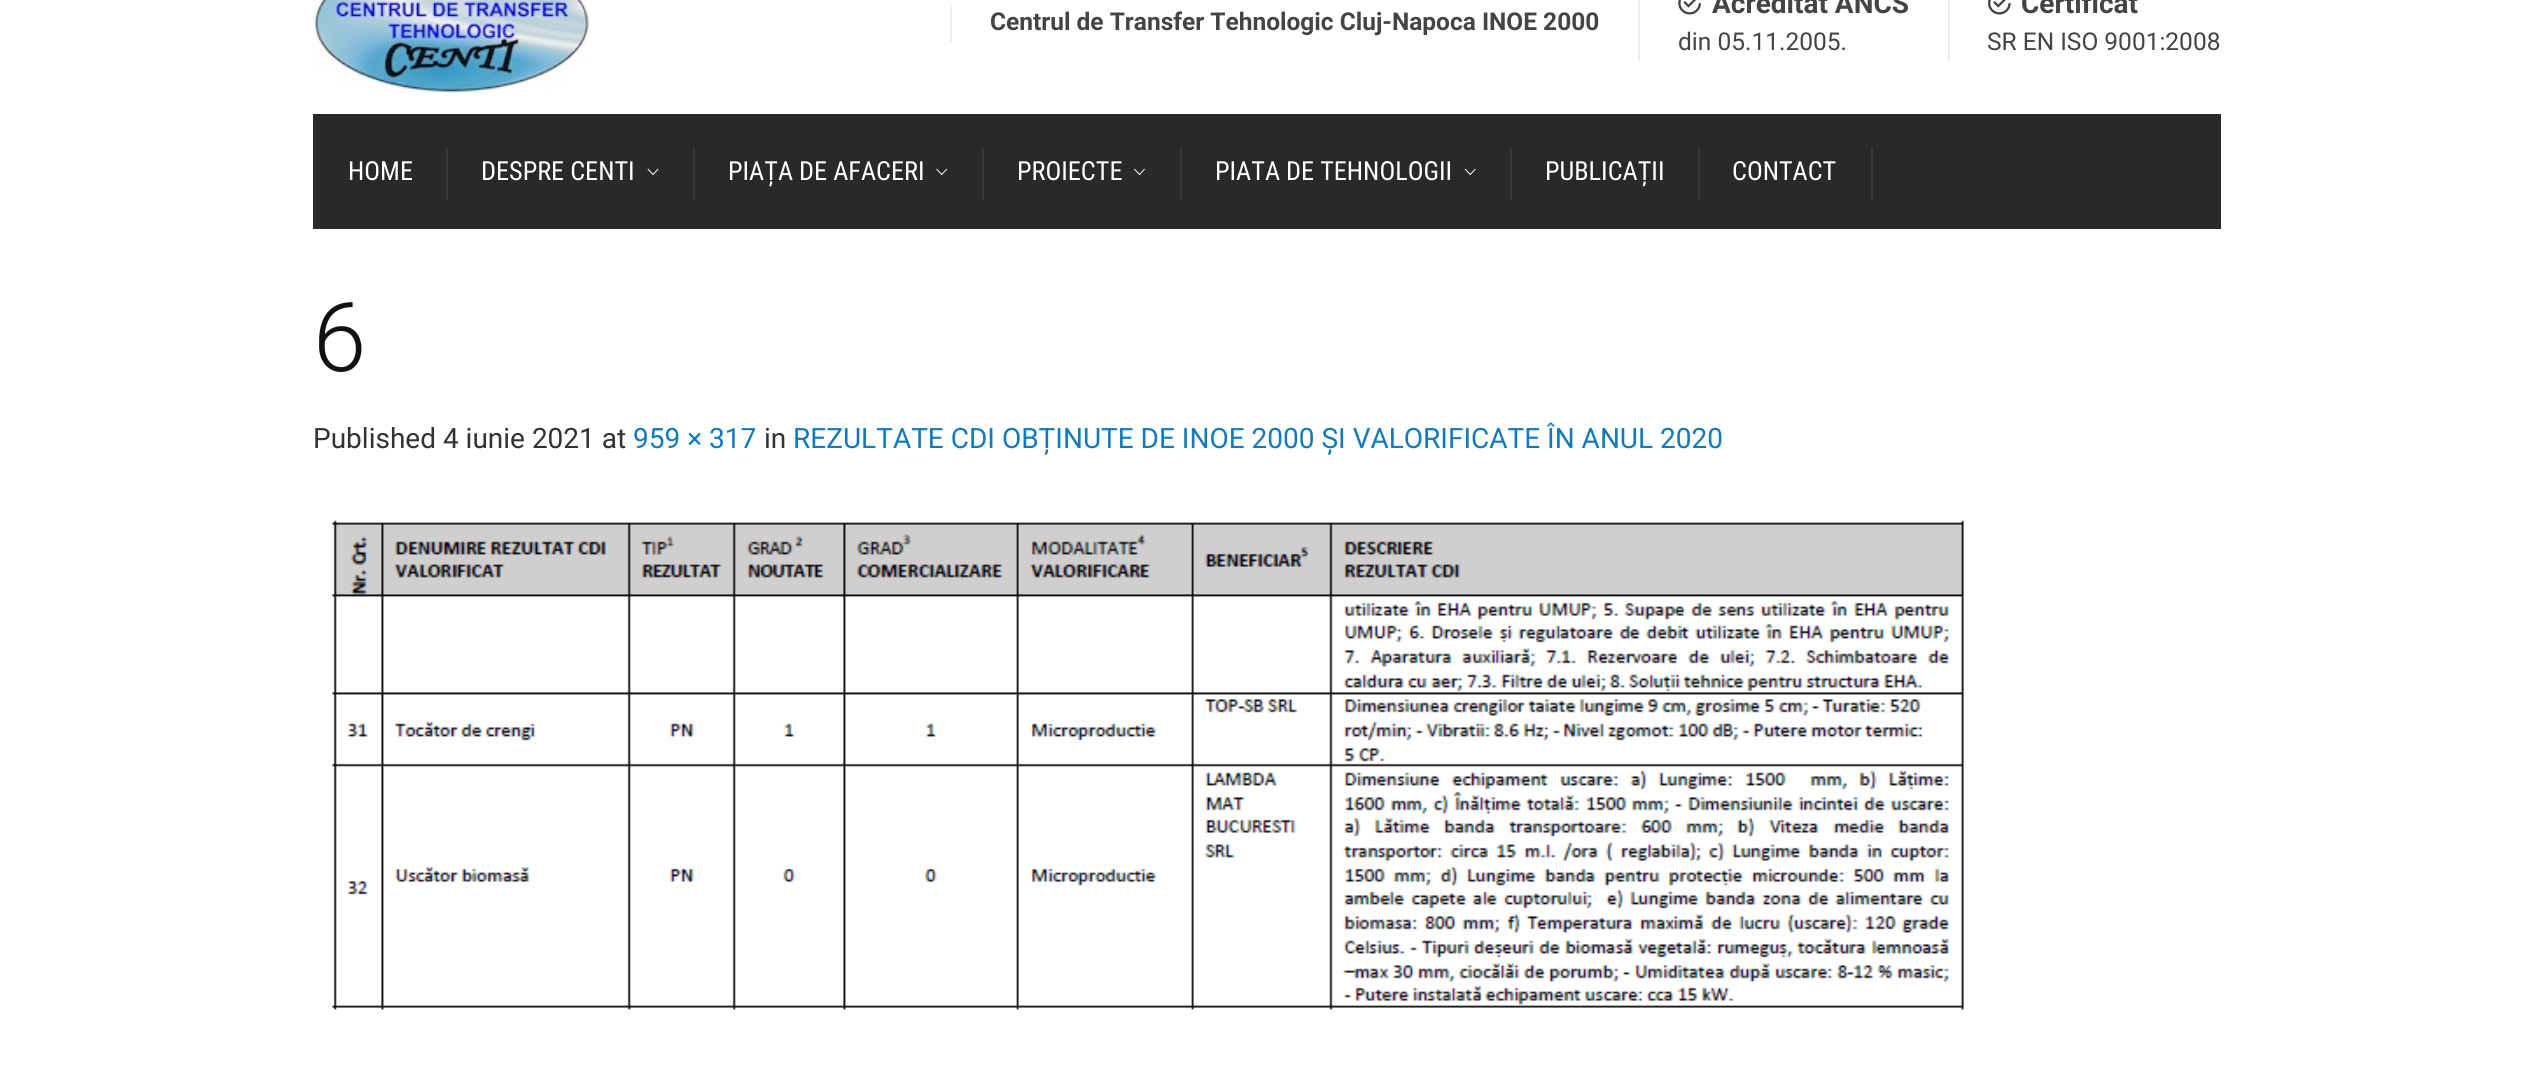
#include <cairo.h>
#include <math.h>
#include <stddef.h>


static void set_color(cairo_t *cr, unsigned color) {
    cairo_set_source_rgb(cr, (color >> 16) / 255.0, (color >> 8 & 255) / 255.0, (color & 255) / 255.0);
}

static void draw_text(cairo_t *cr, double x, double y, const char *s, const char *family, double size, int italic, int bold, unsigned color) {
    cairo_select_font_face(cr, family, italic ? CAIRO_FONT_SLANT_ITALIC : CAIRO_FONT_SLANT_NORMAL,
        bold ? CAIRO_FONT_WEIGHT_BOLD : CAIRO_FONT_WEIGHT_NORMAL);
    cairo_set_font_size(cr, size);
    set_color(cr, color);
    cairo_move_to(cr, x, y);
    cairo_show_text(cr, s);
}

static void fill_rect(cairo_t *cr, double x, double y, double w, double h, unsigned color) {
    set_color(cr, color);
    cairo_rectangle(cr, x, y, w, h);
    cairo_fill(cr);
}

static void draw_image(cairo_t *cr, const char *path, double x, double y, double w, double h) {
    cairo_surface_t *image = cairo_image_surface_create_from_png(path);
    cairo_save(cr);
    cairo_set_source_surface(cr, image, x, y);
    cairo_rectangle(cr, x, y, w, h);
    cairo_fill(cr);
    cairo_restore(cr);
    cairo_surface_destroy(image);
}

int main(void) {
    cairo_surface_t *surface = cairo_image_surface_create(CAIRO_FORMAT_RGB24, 2534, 1074);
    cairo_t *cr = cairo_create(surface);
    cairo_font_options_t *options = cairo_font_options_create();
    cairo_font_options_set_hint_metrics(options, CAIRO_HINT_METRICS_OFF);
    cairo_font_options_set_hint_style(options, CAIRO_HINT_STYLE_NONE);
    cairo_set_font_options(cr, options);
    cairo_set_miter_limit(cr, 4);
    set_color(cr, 0xFFFFFF);
    cairo_paint(cr);
    draw_image(cr, "assets/img1.png", 313, 0, 276, 94);
    fill_rect(cr, 950, 5, 2, 37, 0xEEEEEE);
    draw_text(cr, 990, 30, "Centrul de Transfer Tehnologic Cluj-Napoca INOE 2000", "Roboto", 24.5, 0, 1, 0x444444);
    fill_rect(cr, 1638, 0, 2, 61, 0xEEEEEE);
    draw_image(cr, "assets/img2.png", 1678, 0, 23, 15);
    draw_text(cr, 1712, 13, "Acreditat ANCS", "Roboto", 28, 0, 1, 0x444444);
    draw_text(cr, 1678, 50, "din 05.11.2005.", "Roboto", 24.5, 0, 0, 0x444444);
    fill_rect(cr, 1948, 0, 2, 61, 0xEEEEEE);
    draw_image(cr, "assets/img3.png", 1988, 0, 23, 15);
    draw_text(cr, 2021, 13, "Certificat", "Roboto", 28, 0, 1, 0x444444);
    draw_text(cr, 1987, 50, "SR EN ISO 9001:2008", "Roboto", 24.5, 0, 0, 0x444444);
    fill_rect(cr, 313, 114, 1908, 115, 0x292929);
    draw_text(cr, 348, 180, "HOME", "Roboto Condensed", 26.25, 0, 0, 0xFFFFFF);
    fill_rect(cr, 446, 147, 2, 53, 0x383838);
    draw_text(cr, 481, 180, "DESPRE CENTI", "Roboto Condensed", 26.25, 0, 0, 0xFFFFFF);
    fill_rect(cr, 693, 147, 2, 53, 0x383838);
    draw_image(cr, "assets/img4.png", 647, 168, 12, 8);
    draw_text(cr, 728, 180, "PIAȚA DE AFACERI", "Roboto Condensed", 26.25, 0, 0, 0xFFFFFF);
    fill_rect(cr, 982, 147, 2, 53, 0x383838);
    draw_image(cr, "assets/img5.png", 936, 168, 12, 8);
    draw_text(cr, 1017, 180, "PROIECTE", "Roboto Condensed", 26.25, 0, 0, 0xFFFFFF);
    fill_rect(cr, 1180, 147, 2, 53, 0x383838);
    draw_image(cr, "assets/img6.png", 1134, 168, 11, 8);
    draw_text(cr, 1215, 180, "PIATA DE TEHNOLOGII", "Roboto Condensed", 26.25, 0, 0, 0xFFFFFF);
    fill_rect(cr, 1510, 147, 2, 53, 0x383838);
    draw_image(cr, "assets/img7.png", 1464, 168, 12, 8);
    draw_text(cr, 1545, 180, "PUBLICAȚII", "Roboto Condensed", 26.25, 0, 0, 0xFFFFFF);
    fill_rect(cr, 1698, 147, 2, 53, 0x383838);
    draw_text(cr, 1732, 180, "CONTACT", "Roboto Condensed", 26.25, 0, 0, 0xFFFFFF);
    fill_rect(cr, 1871, 147, 2, 53, 0x383838);
    draw_text(cr, 313, 371, "6", "Roboto Light", 96, 0, 0, 0x111111);
    draw_text(cr, 313, 448, "Published 4 iunie 2021 at", "Roboto", 28, 0, 0, 0x333333);
    draw_text(cr, 633, 448, "959 × 317", "Roboto", 28, 0, 0, 0x117ABC);
    draw_text(cr, 764, 448, "in", "Roboto", 28, 0, 0, 0x333333);
    draw_text(cr, 793, 448, "REZULTATE CDI OBȚINUTE DE INOE 2000 ȘI VALORIFICATE ÎN ANUL 2020", "Roboto", 28, 0, 0, 0x117ABC);
    draw_image(cr, "assets/img8.png", 332, 520, 1632, 490);
    cairo_surface_write_to_png(surface, "output.png");
    cairo_font_options_destroy(options);
    cairo_destroy(cr);
    cairo_surface_destroy(surface);
    return 0;
}
